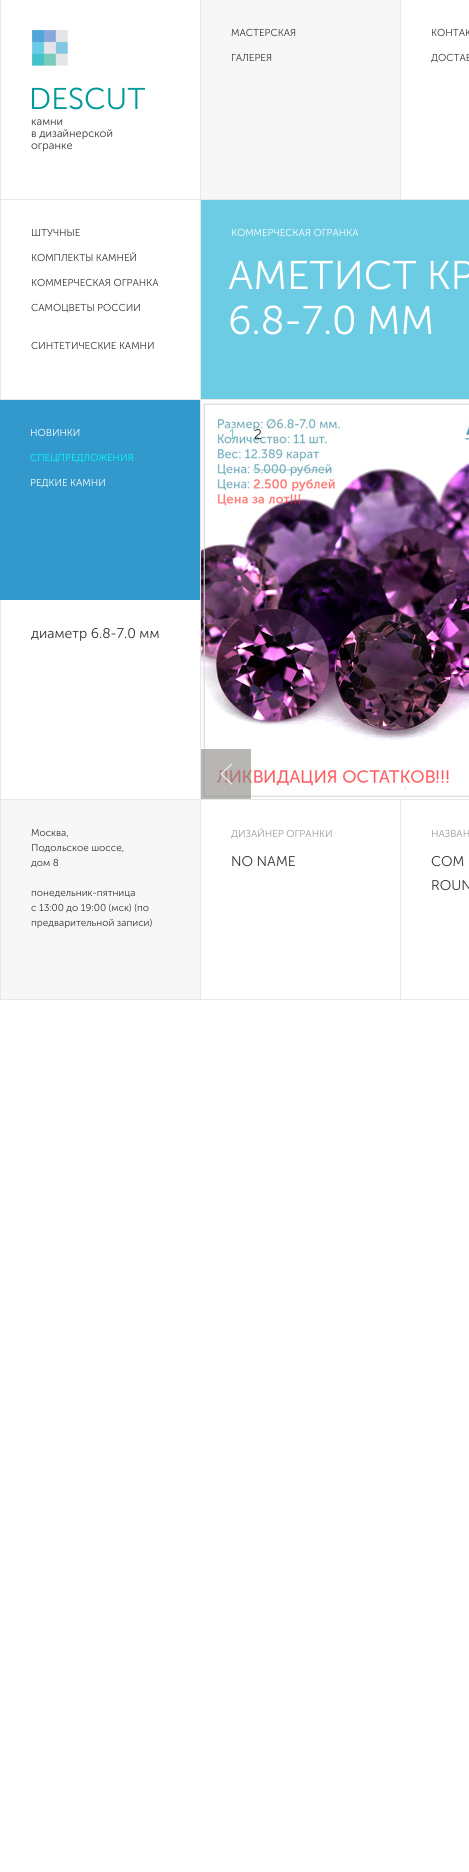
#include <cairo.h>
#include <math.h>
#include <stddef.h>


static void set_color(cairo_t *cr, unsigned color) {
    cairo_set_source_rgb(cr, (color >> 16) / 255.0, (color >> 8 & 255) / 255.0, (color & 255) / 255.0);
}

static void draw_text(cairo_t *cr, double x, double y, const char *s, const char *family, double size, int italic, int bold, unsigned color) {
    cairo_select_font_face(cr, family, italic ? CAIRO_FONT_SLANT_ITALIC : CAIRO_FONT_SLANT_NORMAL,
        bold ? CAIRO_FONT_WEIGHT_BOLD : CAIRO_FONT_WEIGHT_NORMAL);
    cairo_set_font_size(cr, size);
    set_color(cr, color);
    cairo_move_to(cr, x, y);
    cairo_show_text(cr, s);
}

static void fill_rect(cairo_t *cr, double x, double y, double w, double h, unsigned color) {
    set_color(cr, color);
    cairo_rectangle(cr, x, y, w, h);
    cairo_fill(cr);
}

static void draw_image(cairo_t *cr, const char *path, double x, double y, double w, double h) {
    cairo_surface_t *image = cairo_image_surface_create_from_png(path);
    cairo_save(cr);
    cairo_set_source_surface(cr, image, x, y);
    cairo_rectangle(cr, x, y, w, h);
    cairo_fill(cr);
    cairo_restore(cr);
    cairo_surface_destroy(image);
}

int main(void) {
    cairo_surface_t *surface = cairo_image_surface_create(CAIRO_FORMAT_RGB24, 469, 1872);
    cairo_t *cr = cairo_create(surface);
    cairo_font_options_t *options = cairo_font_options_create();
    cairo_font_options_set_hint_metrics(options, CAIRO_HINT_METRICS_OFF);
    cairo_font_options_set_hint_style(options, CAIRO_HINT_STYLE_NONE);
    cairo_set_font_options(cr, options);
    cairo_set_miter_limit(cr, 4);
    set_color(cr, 0xFFFFFF);
    cairo_paint(cr);
    draw_image(cr, "assets/img1.png", 200, 400, 269, 400);
    fill_rect(cr, 201, 0, 199, 199, 0xF7F7F7);
    fill_rect(cr, 0, 199, 469, 1, 0xE8E8E8);
    fill_rect(cr, 200, 0, 1, 200, 0xE8E8E8);
    draw_text(cr, 231, 36, "МАСТЕРСКАЯ", "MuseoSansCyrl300", 10, 0, 0, 0x333333);
    draw_text(cr, 231, 61, "ГАЛЕРЕЯ", "MuseoSansCyrl300", 10, 0, 0, 0x333333);
    fill_rect(cr, 400, 0, 1, 200, 0xE8E8E8);
    draw_text(cr, 431, 36, "КОНТАК", "MuseoSansCyrl300", 10, 0, 0, 0x333333);
    draw_text(cr, 431, 61, "ДОСТАВ", "MuseoSansCyrl300", 10, 0, 0, 0x333333);
    fill_rect(cr, 0, 0, 1, 200, 0xE8E8E8);
    draw_image(cr, "assets/img2.png", 32, 30, 36, 36);
    draw_text(cr, 29, 109, "DESCUT", "MuseoSansCyrl300", 30, 0, 0, 0x009999);
    draw_text(cr, 31, 125, "камни", "MuseoSansCyrl300", 11, 0, 0, 0x333333);
    draw_text(cr, 31, 137, "в дизайнерской", "MuseoSansCyrl300", 11, 0, 0, 0x333333);
    draw_text(cr, 31, 149, "огранке", "MuseoSansCyrl300", 11, 0, 0, 0x333333);
    fill_rect(cr, 0, 399, 469, 1, 0xE8E8E8);
    fill_rect(cr, 0, 200, 1, 200, 0xE8E8E8);
    draw_text(cr, 31, 236, "ШТУЧНЫЕ", "MuseoSansCyrl300", 10, 0, 0, 0x333333);
    draw_text(cr, 31, 261, "КОМПЛЕКТЫ КАМНЕЙ", "MuseoSansCyrl300", 10, 0, 0, 0x333333);
    draw_text(cr, 31, 286, "КОММЕРЧЕСКАЯ ОГРАНКА", "MuseoSansCyrl300", 10, 0, 0, 0x333333);
    draw_text(cr, 31, 311, "САМОЦВЕТЫ РОССИИ", "MuseoSansCyrl300", 10, 0, 0, 0x333333);
    draw_text(cr, 31, 349, "СИНТЕТИЧЕСКИЕ КАМНИ", "MuseoSansCyrl300", 10, 0, 0, 0x333333);
    fill_rect(cr, 0, 400, 200, 200, 0x3399CC);
    draw_text(cr, 30, 436, "НОВИНКИ", "MuseoSansCyrl300", 10, 0, 0, 0xFFFFFF);
    draw_text(cr, 30, 461, "СПЕЦПРЕДЛОЖЕНИЯ", "MuseoSansCyrl300", 10, 0, 0, 0x00FFFF);
    draw_text(cr, 30, 486, "РЕДКИЕ КАМНИ", "MuseoSansCyrl300", 10, 0, 0, 0xFFFFFF);
    fill_rect(cr, 201, 200, 268, 199, 0x6BCCE4);
    fill_rect(cr, 200, 200, 1, 200, 0xE8E8E8);
    draw_text(cr, 231, 236, "КОММЕРЧЕСКАЯ ОГРАНКА", "MuseoSansCyrl300", 10, 0, 0, 0xFFFFFF);
    draw_text(cr, 228, 289, "АМЕТИСТ КР", "MuseoSansCyrl300", 40, 0, 0, 0xFFFFFF);
    draw_text(cr, 228, 334, "6.8-7.0 ММ", "MuseoSansCyrl300", 40, 0, 0, 0xFFFFFF);
    fill_rect(cr, 201, 400, 268, 399, 0xFFFFFF);
    draw_image(cr, "assets/img3.png", 201, 403, 268, 394);
    draw_text(cr, 229, 439, "1", "MuseoSansCyrl300", 14, 0, 0, 0x66CCCC);
    draw_text(cr, 254, 439, "2", "MuseoSansCyrl300", 14, 0, 0, 0x333333);
    cairo_set_source_rgba(cr, 0.537, 0.525, 0.506, 0.6);
    cairo_rectangle(cr, 201, 749, 50, 50);
    cairo_fill(cr);
    draw_image(cr, "assets/img4.png", 220, 763, 12, 22);
    fill_rect(cr, 0, 799, 200, 1, 0xE8E8E8);
    fill_rect(cr, 0, 600, 1, 200, 0xE8E8E8);
    draw_text(cr, 31, 638, "диаметр 6.8-7.0 мм", "MuseoSansCyrl300", 14, 0, 0, 0x333333);
    fill_rect(cr, 1, 800, 199, 199, 0xF7F7F7);
    fill_rect(cr, 0, 999, 469, 1, 0xE8E8E8);
    fill_rect(cr, 0, 800, 1, 200, 0xE8E8E8);
    draw_text(cr, 31, 836, "Москва,", "MuseoSansCyrl300", 10, 0, 0, 0x333333);
    draw_text(cr, 31, 851, "Подольское шоссе,", "MuseoSansCyrl300", 10, 0, 0, 0x333333);
    draw_text(cr, 31, 866, "дом 8", "MuseoSansCyrl300", 10, 0, 0, 0x333333);
    draw_text(cr, 31, 896, "понедельник-пятница", "MuseoSansCyrl300", 10, 0, 0, 0x333333);
    draw_text(cr, 31, 911, "с 13:00 до 19:00 (мск) (по", "MuseoSansCyrl300", 10, 0, 0, 0x333333);
    draw_text(cr, 31, 926, "предварительной записи)", "MuseoSansCyrl300", 10, 0, 0, 0x333333);
    fill_rect(cr, 200, 800, 1, 200, 0xE8E8E8);
    draw_text(cr, 231, 837, "ДИЗАЙНЕР ОГРАНКИ", "MuseoSansCyrl300", 10, 0, 0, 0x999999);
    draw_text(cr, 231, 866, "NO NAME", "MuseoSansCyrl300", 14, 0, 0, 0x333333);
    fill_rect(cr, 400, 800, 1, 200, 0xE8E8E8);
    draw_text(cr, 431, 837, "НАЗВАН", "MuseoSansCyrl300", 10, 0, 0, 0x999999);
    draw_text(cr, 431, 866, "COM", "MuseoSansCyrl300", 14, 0, 0, 0x333333);
    draw_text(cr, 431, 890, "ROUN", "MuseoSansCyrl300", 14, 0, 0, 0x333333);
    cairo_surface_write_to_png(surface, "output.png");
    cairo_font_options_destroy(options);
    cairo_destroy(cr);
    cairo_surface_destroy(surface);
    return 0;
}
